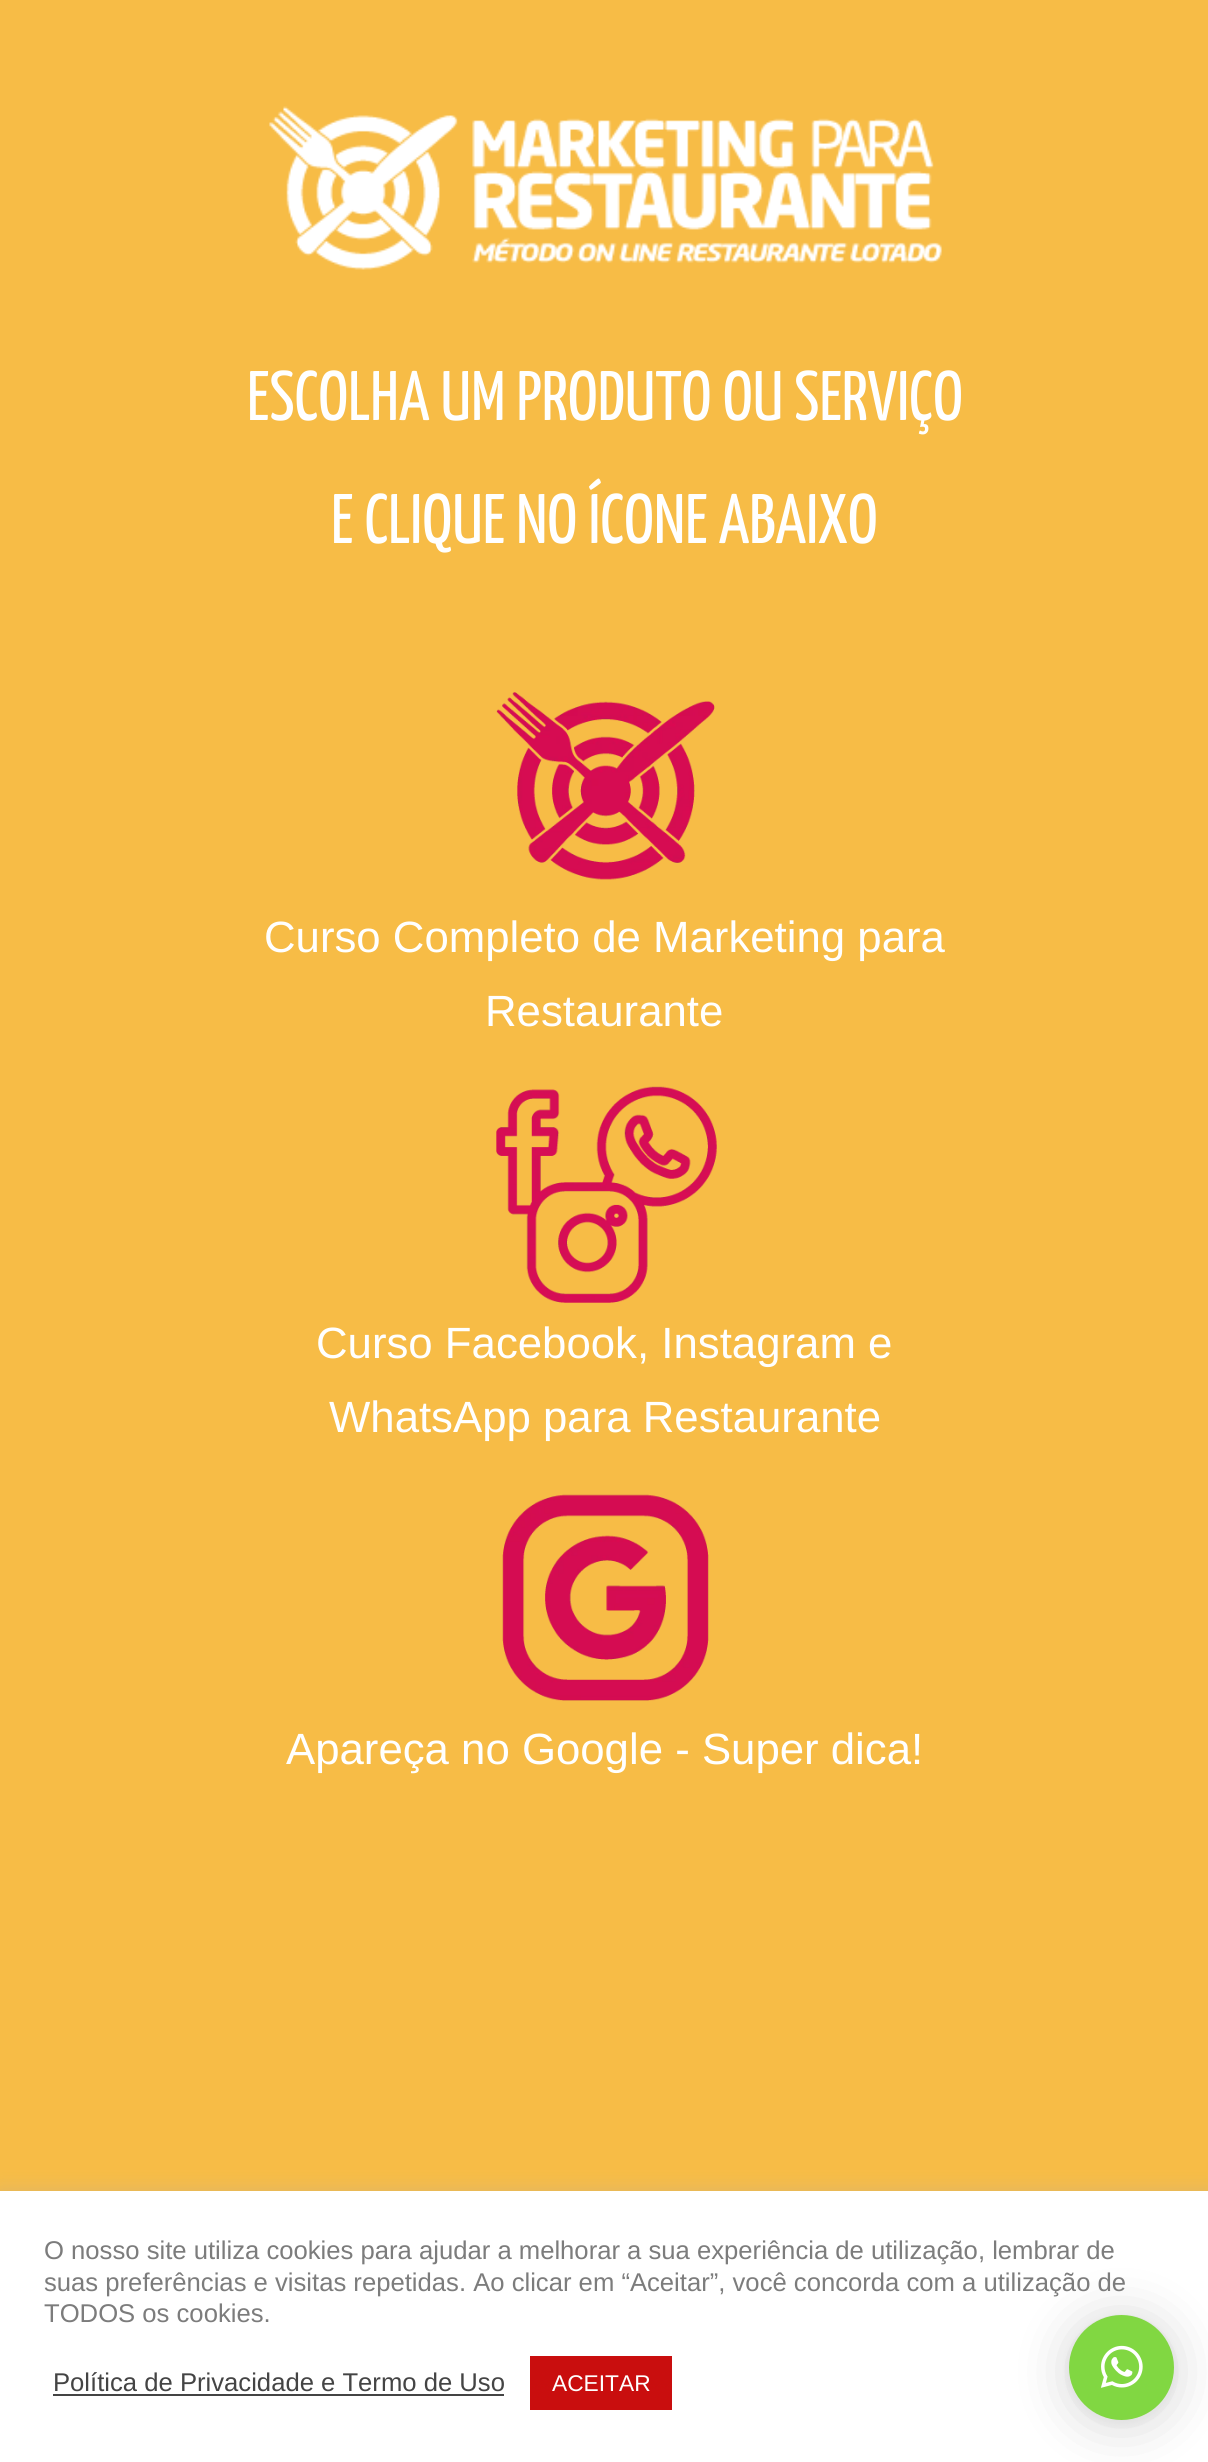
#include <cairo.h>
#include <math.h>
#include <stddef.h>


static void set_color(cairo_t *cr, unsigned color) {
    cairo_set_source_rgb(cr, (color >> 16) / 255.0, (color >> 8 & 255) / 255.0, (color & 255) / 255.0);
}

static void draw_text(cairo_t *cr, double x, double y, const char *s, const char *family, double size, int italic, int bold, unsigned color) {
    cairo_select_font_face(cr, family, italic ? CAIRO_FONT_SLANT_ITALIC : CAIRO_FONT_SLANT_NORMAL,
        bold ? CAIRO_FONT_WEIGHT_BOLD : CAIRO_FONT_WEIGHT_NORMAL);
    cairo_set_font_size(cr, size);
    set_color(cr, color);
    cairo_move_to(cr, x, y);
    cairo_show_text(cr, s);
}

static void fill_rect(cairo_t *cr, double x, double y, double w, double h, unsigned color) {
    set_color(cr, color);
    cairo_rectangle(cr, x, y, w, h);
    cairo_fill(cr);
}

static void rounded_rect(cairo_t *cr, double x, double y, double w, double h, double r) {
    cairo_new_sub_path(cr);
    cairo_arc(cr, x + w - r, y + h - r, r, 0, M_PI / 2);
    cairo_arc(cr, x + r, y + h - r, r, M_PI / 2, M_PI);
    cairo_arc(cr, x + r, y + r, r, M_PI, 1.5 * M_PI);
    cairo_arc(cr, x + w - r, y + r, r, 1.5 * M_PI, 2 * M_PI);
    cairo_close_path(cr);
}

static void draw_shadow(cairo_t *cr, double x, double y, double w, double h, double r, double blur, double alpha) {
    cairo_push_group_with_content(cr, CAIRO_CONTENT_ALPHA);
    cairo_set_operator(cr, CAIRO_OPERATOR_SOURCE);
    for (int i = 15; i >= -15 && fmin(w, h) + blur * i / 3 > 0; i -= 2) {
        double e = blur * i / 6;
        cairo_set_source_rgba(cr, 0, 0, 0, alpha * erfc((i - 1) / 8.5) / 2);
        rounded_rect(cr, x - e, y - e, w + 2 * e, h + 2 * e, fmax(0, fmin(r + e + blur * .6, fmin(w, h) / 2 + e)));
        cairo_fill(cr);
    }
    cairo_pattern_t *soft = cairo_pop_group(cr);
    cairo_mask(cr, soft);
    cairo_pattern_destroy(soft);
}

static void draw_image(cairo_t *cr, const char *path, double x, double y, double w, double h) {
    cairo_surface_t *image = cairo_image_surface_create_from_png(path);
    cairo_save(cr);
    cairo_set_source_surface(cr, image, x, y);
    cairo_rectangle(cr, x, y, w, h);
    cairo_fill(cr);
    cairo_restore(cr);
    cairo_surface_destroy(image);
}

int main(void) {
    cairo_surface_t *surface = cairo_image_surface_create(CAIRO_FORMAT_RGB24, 1208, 2462);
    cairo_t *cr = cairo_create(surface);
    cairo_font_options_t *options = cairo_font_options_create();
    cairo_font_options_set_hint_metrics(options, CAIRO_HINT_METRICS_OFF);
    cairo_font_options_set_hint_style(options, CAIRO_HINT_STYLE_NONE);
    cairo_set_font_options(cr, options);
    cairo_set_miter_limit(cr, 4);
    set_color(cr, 0xF7BC46);
    cairo_paint(cr);
    draw_image(cr, "assets/img1.png", 269, 106, 673, 164);
    draw_text(cr, 247, 420, "ESCOLHA UM PRODUTO OU SERVIÇO", "Yanone Kaffeesatz", 70, 0, 0, 0xFFFFFF);
    draw_text(cr, 331, 543, "E CLIQUE NO ÍCONE ABAIXO", "Yanone Kaffeesatz", 70, 0, 0, 0xFFFFFF);
    draw_image(cr, "assets/img2.png", 496, 692, 219, 188);
    draw_text(cr, 264, 952, "Curso Completo de Marketing para", "Liberation Sans", 43.75, 0, 0, 0xFFFFFF);
    draw_text(cr, 485, 1026, "Restaurante", "Liberation Sans", 43.75, 0, 0, 0xFFFFFF);
    draw_image(cr, "assets/img3.png", 496, 1086, 221, 217);
    draw_text(cr, 316, 1358, "Curso Facebook, Instagram e", "Liberation Sans", 43.75, 0, 0, 0xFFFFFF);
    draw_text(cr, 329, 1432, "WhatsApp para Restaurante", "Liberation Sans", 43.75, 0, 0, 0xFFFFFF);
    draw_image(cr, "assets/img4.png", 502, 1494, 207, 207);
    draw_text(cr, 286, 1764, "Apareça no Google - Super dica!", "Liberation Sans", 43.75, 0, 0, 0xFFFFFF);
    set_color(cr, 0xACABAB);
    draw_shadow(cr, 0, 2189, 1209, 272, 0, 9, 0.3);
    fill_rect(cr, 0, 2191, 1208, 271, 0xFFFFFF);
    set_color(cr, 0x000000);
    draw_shadow(cr, 1069, 2319, 105, 105, 52.5, 28, 0.16);
    draw_shadow(cr, 1069, 2317, 105, 105, 52.5, 5, 0.06);
    set_color(cr, 0x81D742);
    cairo_arc(cr, 1121.5, 2367.5, 52.5, 0, 2 * M_PI);
    cairo_fill(cr);
    draw_image(cr, "assets/img5.png", 1100, 2345, 43, 43);
    draw_text(cr, 44, 2259, "O nosso site utiliza cookies para ajudar a melhorar a sua experiência de utilização, lembrar de", "Liberation Sans", 25.65, 0, 0, 0x7C7C7C);
    draw_text(cr, 44, 2291, "suas preferências e visitas repetidas. Ao clicar em “Aceitar”, você concorda com a utilização de", "Liberation Sans", 25.65, 0, 0, 0x7C7C7C);
    draw_text(cr, 44, 2322, "TODOS os cookies.", "Liberation Sans", 25.65, 0, 0, 0x7C7C7C);
    draw_text(cr, 53, 2391, "Política de Privacidade e Termo de Uso", "Liberation Sans", 25.65, 0, 0, 0x444444);
    fill_rect(cr, 53, 2394, 451, 2, 0x444444);
    fill_rect(cr, 530, 2356, 142, 54, 0xC90E0E);
    draw_text(cr, 552, 2391, "ACEITAR", "Liberation Sans", 22.75, 0, 0, 0xFFFFFF);
    cairo_surface_write_to_png(surface, "output.png");
    cairo_font_options_destroy(options);
    cairo_destroy(cr);
    cairo_surface_destroy(surface);
    return 0;
}
